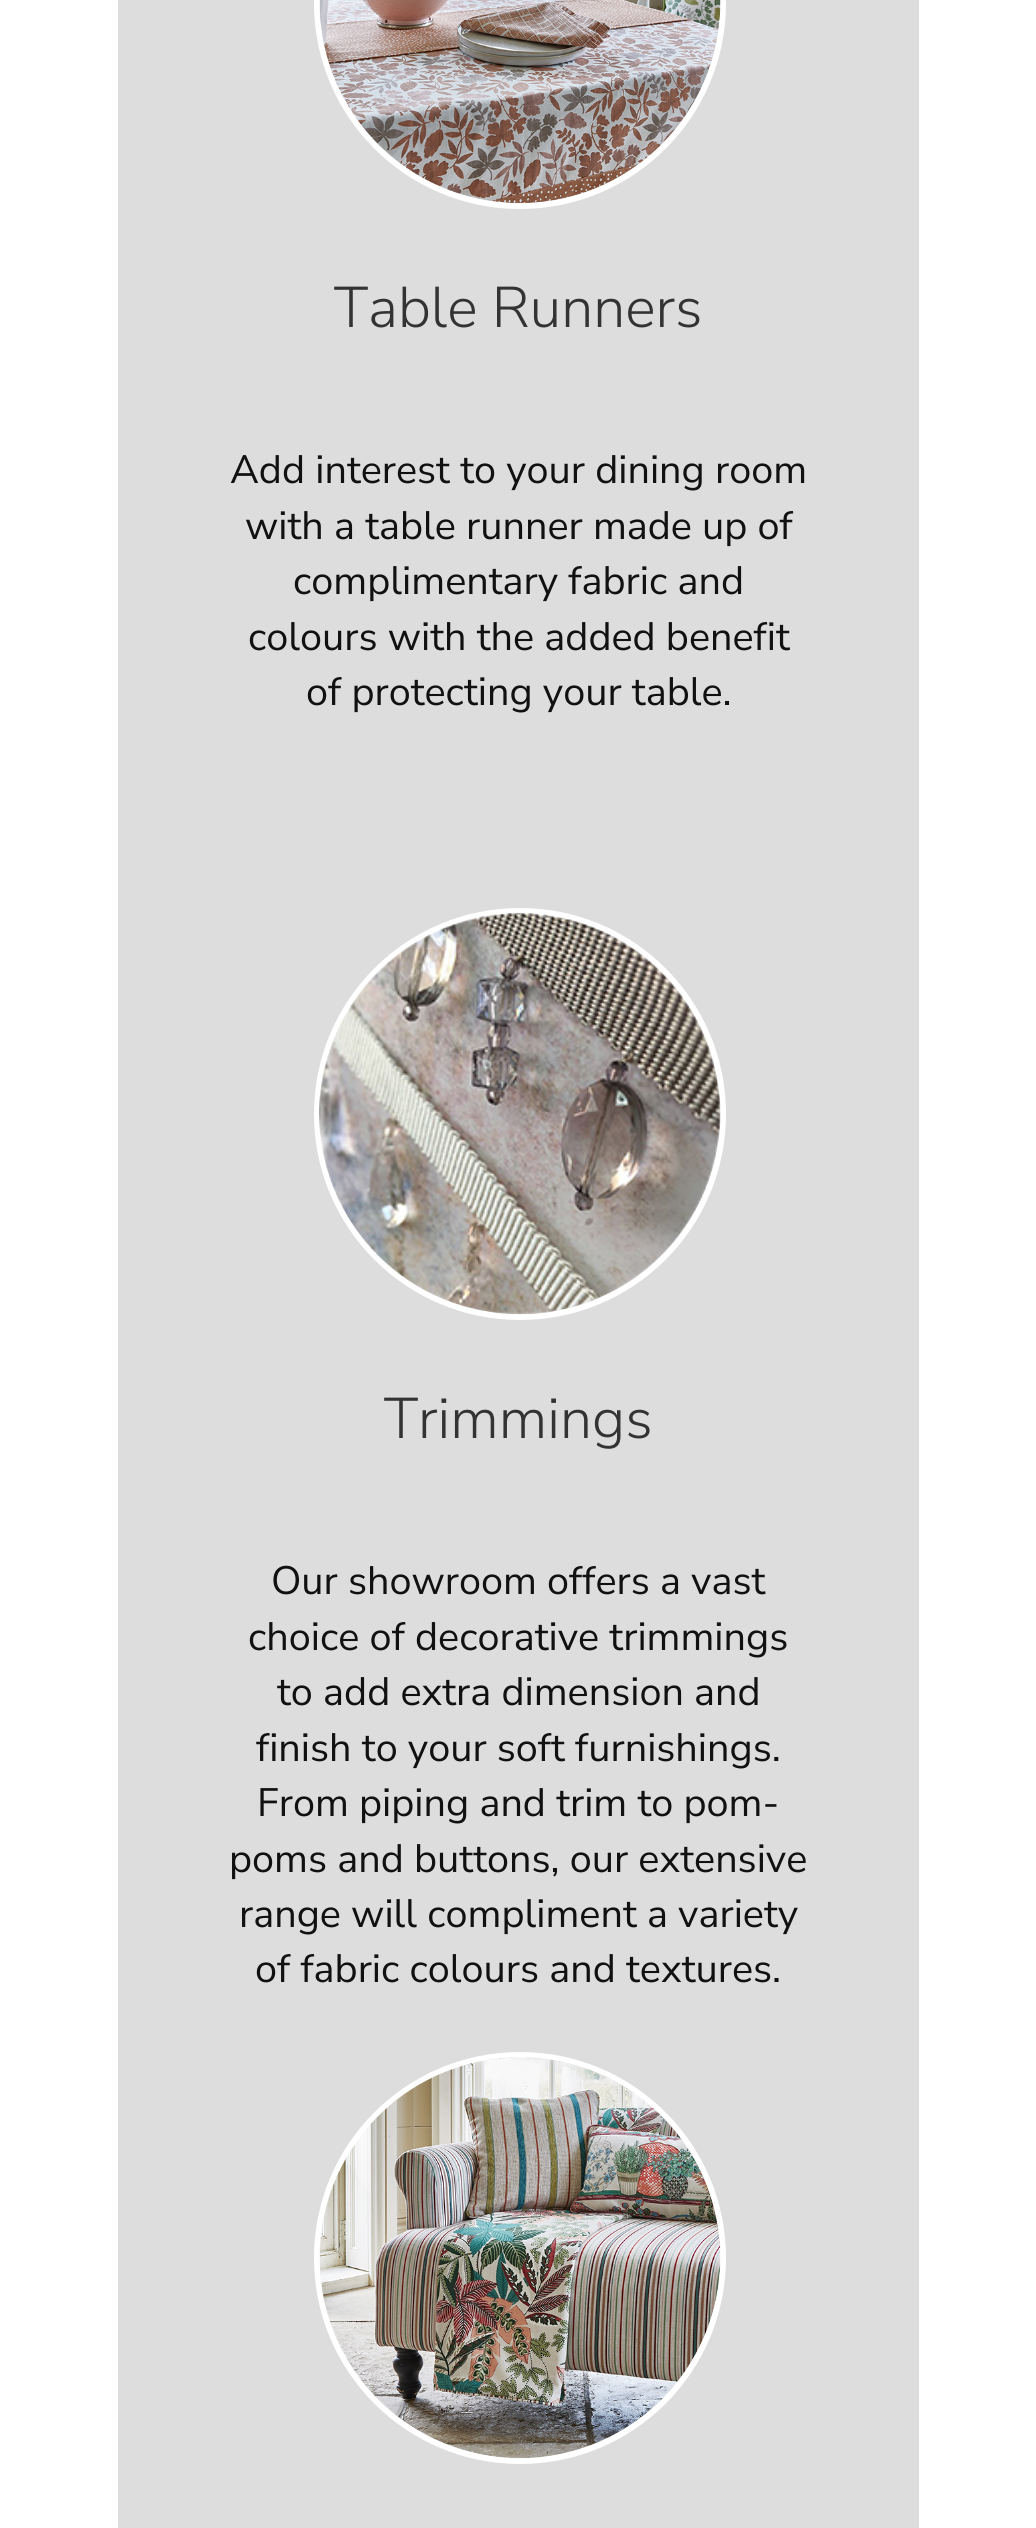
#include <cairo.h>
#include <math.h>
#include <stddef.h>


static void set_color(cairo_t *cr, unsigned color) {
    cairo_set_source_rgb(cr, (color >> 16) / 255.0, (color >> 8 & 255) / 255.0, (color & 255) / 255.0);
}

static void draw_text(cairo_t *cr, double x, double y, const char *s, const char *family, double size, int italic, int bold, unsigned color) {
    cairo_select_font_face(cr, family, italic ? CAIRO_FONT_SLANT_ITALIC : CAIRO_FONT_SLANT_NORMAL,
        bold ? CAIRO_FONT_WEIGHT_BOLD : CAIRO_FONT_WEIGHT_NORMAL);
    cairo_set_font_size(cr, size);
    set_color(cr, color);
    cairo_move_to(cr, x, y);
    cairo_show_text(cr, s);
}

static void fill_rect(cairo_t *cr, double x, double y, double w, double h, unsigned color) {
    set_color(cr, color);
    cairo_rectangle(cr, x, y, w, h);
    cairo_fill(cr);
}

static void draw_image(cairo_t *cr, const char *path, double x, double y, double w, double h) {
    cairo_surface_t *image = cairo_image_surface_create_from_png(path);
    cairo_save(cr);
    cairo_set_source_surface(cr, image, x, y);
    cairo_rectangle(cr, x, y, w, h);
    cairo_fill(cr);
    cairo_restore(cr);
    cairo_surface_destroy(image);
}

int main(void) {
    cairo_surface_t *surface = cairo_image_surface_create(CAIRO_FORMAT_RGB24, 1036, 2528);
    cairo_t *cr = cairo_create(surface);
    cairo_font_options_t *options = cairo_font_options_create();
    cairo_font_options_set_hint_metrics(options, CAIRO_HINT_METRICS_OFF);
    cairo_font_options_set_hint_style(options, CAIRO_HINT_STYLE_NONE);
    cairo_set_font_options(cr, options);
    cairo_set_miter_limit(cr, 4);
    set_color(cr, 0xFFFFFF);
    cairo_paint(cr);
    fill_rect(cr, 118, 0, 801, 2528, 0xDDDDDD);
    cairo_arc(cr, 520, 3, 203, 0, 2 * M_PI);
    set_color(cr, 0xFFFFFF);
    cairo_set_line_width(cr, 6);
    cairo_stroke(cr);
    draw_image(cr, "assets/img1.png", 319, 0, 402, 204);
    draw_text(cr, 334, 327, "Table Runners", "Nunito Sans Light", 57.25, 0, 0, 0x333333);
    draw_text(cr, 230, 483, "Add interest to your dining room", "Nunito Sans", 39.6, 0, 0, 0x111111);
    draw_text(cr, 245, 539, "with a table runner made up of", "Nunito Sans", 39.6, 0, 0, 0x111111);
    draw_text(cr, 293, 594, "complimentary fabric and", "Nunito Sans", 39.6, 0, 0, 0x111111);
    draw_text(cr, 248, 650, "colours with the added benefit", "Nunito Sans", 39.6, 0, 0, 0x111111);
    draw_text(cr, 306, 705, "of protecting your table.", "Nunito Sans", 39.6, 0, 0, 0x111111);
    cairo_new_path(cr);
    cairo_arc(cr, 520, 1114, 203, 0, 2 * M_PI);
    set_color(cr, 0xFFFFFF);
    cairo_stroke(cr);
    draw_image(cr, "assets/img2.png", 319, 912, 402, 403);
    draw_text(cr, 384, 1438, "Trimmings", "Nunito Sans Light", 57.25, 0, 0, 0x333333);
    draw_text(cr, 271, 1594, "Our showroom offers a vast", "Nunito Sans", 39.6, 0, 0, 0x111111);
    draw_text(cr, 248, 1650, "choice of decorative trimmings", "Nunito Sans", 39.6, 0, 0, 0x111111);
    draw_text(cr, 277, 1705, "to add extra dimension and", "Nunito Sans", 39.6, 0, 0, 0x111111);
    draw_text(cr, 256, 1761, "finish to your soft furnishings.", "Nunito Sans", 39.6, 0, 0, 0x111111);
    draw_text(cr, 257, 1816, "From piping and trim to pom-", "Nunito Sans", 39.6, 0, 0, 0x111111);
    draw_text(cr, 229, 1872, "poms and buttons, our extensive", "Nunito Sans", 39.6, 0, 0, 0x111111);
    draw_text(cr, 239, 1927, "range will compliment a variety", "Nunito Sans", 39.6, 0, 0, 0x111111);
    draw_text(cr, 255, 1982, "of fabric colours and textures.", "Nunito Sans", 39.6, 0, 0, 0x111111);
    cairo_new_path(cr);
    cairo_arc(cr, 520, 2258, 203, 0, 2 * M_PI);
    set_color(cr, 0xFFFFFF);
    cairo_stroke(cr);
    draw_image(cr, "assets/img3.png", 319, 2057, 402, 402);
    cairo_surface_write_to_png(surface, "output.png");
    cairo_font_options_destroy(options);
    cairo_destroy(cr);
    cairo_surface_destroy(surface);
    return 0;
}
